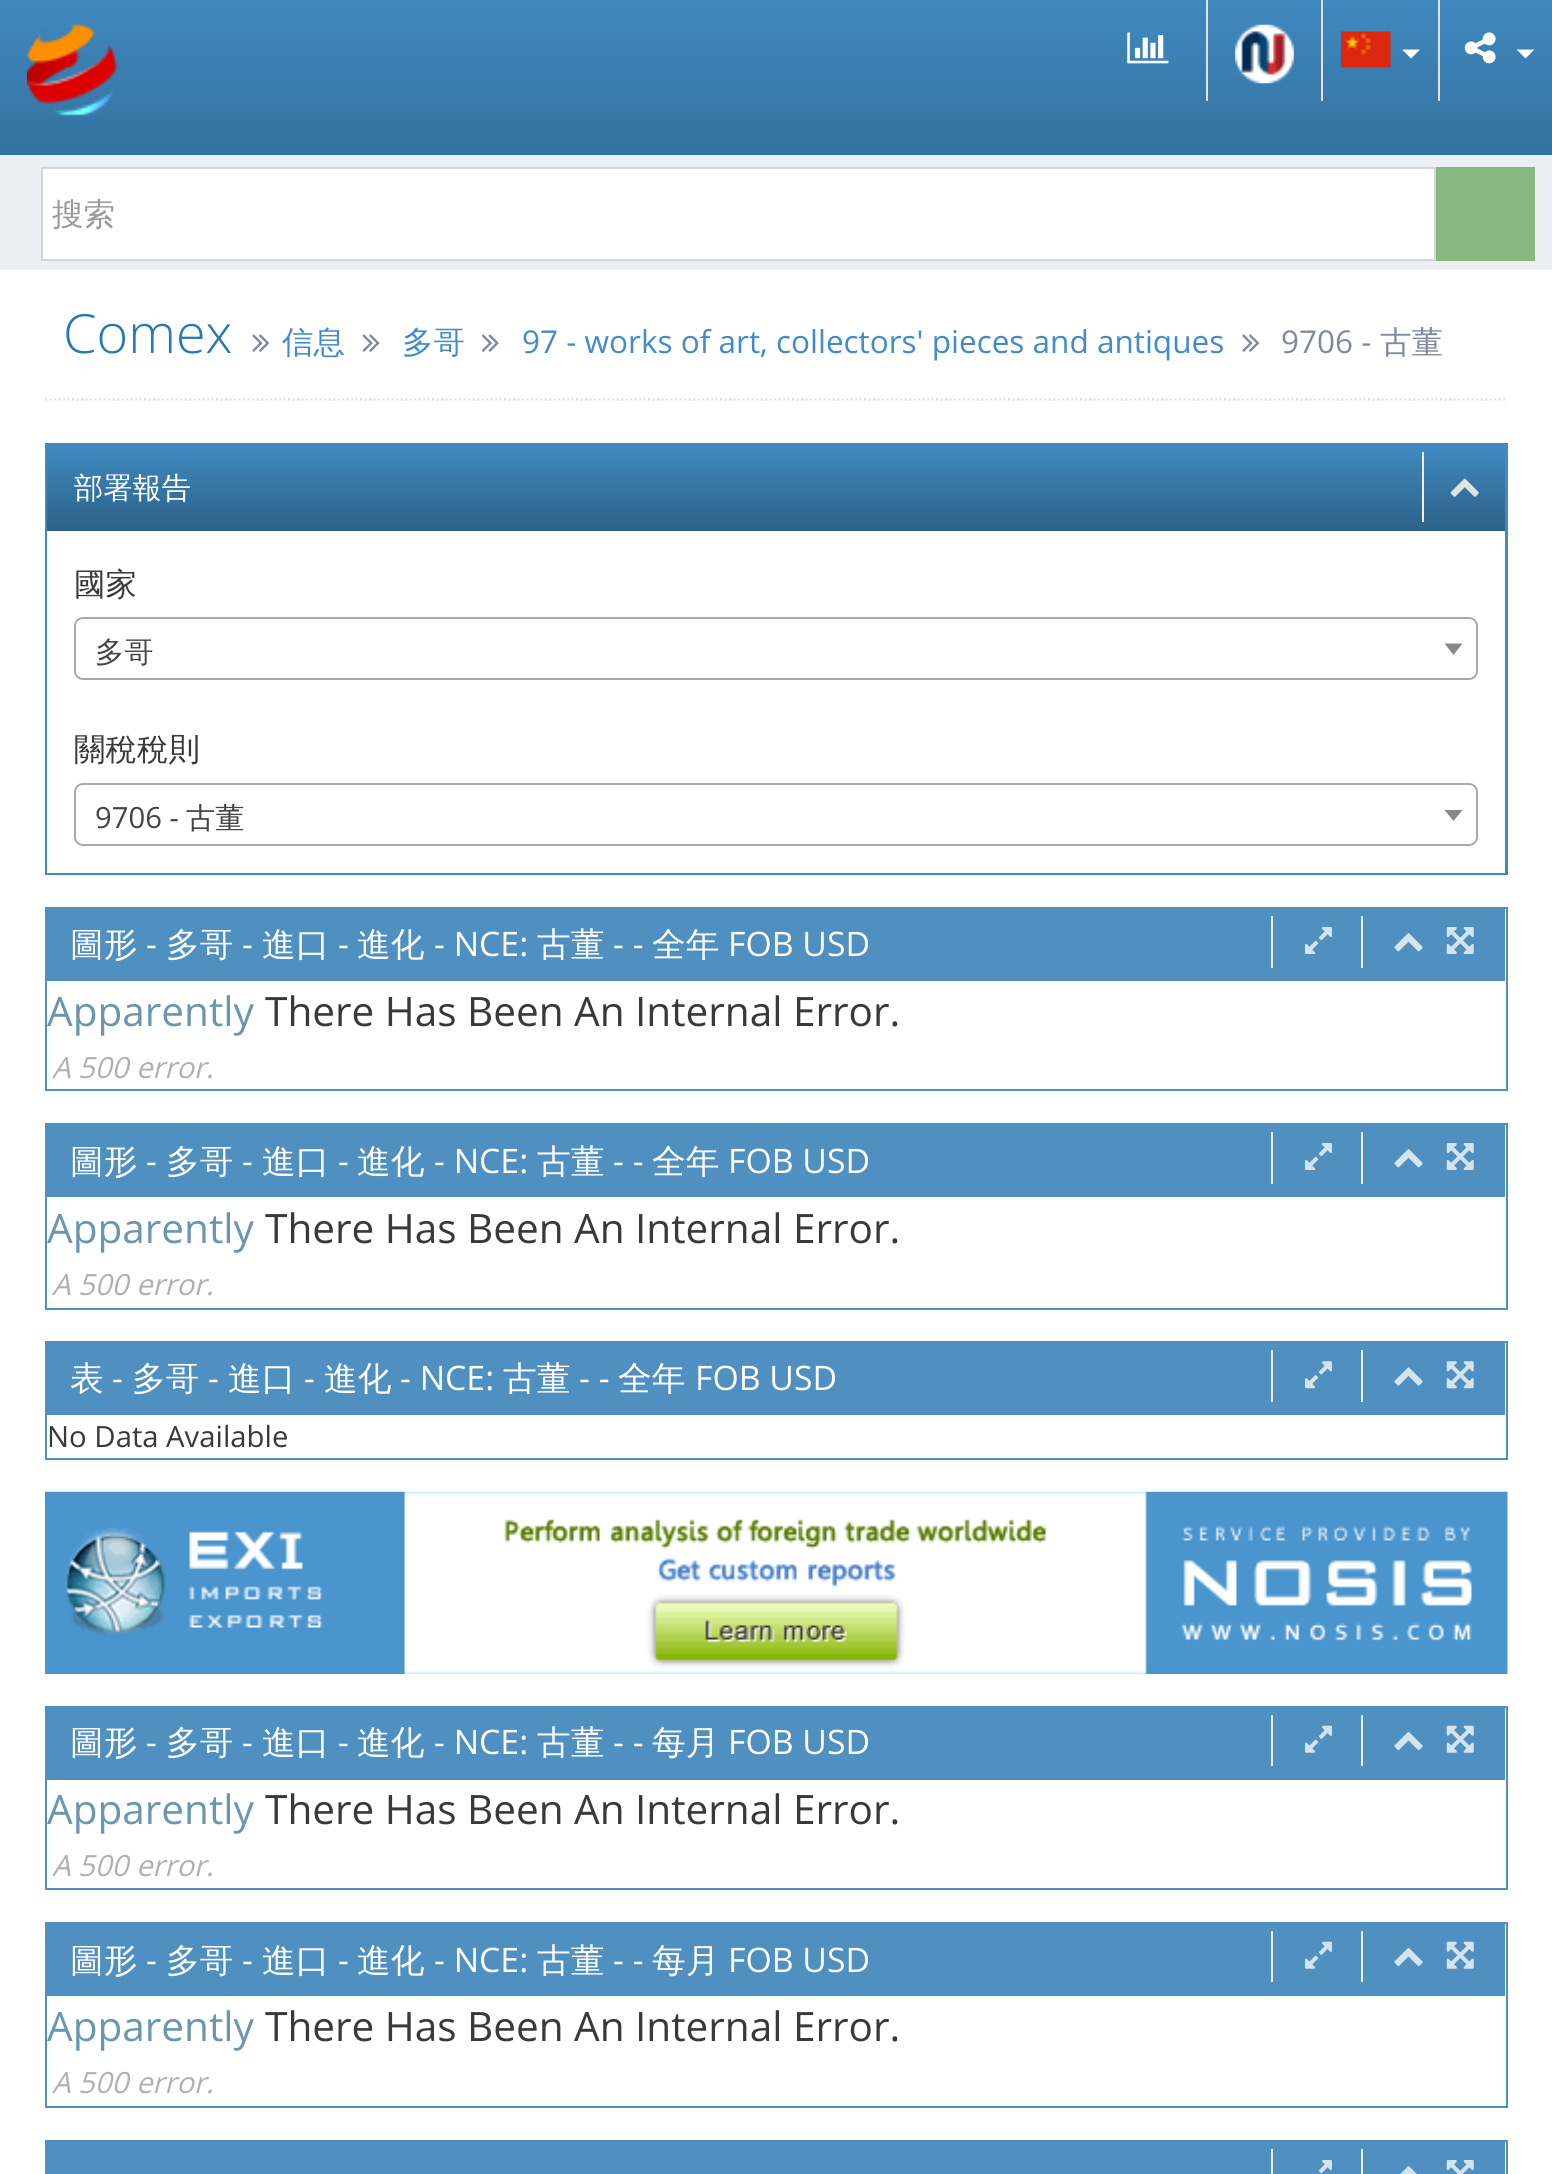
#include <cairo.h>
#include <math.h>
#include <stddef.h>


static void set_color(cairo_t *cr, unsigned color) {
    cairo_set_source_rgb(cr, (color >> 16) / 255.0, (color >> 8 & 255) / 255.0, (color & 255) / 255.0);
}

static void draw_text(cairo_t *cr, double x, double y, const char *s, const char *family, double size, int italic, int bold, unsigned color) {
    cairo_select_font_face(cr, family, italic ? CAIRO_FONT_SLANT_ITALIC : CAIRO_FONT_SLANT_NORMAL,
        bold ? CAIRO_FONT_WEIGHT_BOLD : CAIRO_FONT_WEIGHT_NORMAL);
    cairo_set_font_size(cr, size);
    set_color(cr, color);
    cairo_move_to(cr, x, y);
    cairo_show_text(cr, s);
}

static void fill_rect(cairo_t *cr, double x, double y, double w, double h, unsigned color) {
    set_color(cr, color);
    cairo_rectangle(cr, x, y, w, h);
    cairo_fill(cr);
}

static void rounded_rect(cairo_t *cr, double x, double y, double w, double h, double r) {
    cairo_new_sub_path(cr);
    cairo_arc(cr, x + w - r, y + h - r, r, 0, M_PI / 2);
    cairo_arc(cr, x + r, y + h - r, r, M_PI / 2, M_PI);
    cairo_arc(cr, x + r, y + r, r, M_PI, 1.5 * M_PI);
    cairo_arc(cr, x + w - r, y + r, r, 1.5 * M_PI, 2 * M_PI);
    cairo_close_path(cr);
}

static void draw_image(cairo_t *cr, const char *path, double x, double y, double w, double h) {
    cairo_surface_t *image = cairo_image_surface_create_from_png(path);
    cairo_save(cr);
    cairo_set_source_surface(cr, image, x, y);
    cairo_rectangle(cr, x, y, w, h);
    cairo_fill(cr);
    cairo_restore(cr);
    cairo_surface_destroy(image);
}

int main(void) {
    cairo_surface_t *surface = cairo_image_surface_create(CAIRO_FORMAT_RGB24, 1552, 2174);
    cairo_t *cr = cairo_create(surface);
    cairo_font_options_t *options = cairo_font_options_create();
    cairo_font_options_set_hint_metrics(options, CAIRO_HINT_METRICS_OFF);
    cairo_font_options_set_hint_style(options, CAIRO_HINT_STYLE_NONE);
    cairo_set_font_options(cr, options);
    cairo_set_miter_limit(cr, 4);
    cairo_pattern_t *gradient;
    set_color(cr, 0xFFFFFF);
    cairo_paint(cr);
    gradient = cairo_pattern_create_linear(776, 0, 776, 270);
    cairo_pattern_add_color_stop_rgba(gradient, 0, 0.247, 0.537, 0.753, 1);
    cairo_pattern_add_color_stop_rgba(gradient, 1, 0.173, 0.376, 0.529, 1);
    cairo_set_source(cr, gradient);
    cairo_pattern_destroy(gradient);
    cairo_rectangle(cr, 0, 0, 1552, 155);
    cairo_fill(cr);
    draw_image(cr, "assets/img1.png", 27, 24, 91, 92);
    draw_image(cr, "assets/img2.png", 1127, 32, 42, 32);
    fill_rect(cr, 1206, 0, 2, 101, 0xE1E1E1);
    draw_image(cr, "assets/img3.png", 1235, 24, 59, 60);
    fill_rect(cr, 1321, 0, 2, 101, 0xE1E1E1);
    draw_image(cr, "assets/img4.png", 1341, 31, 50, 37);
    set_color(cr, 0xFFFFFF);
    cairo_new_path(cr);
    cairo_move_to(cr, 1402, 49.5);
    cairo_line_to(cr, 1420, 49.5);
    cairo_line_to(cr, 1411, 58.5);
    cairo_close_path(cr);
    cairo_fill(cr);
    fill_rect(cr, 1438, 0, 2, 101, 0xE1E1E1);
    draw_image(cr, "assets/img5.png", 1464, 32, 32, 32);
    set_color(cr, 0xFFFFFF);
    cairo_new_path(cr);
    cairo_move_to(cr, 1516.5, 49.5);
    cairo_line_to(cr, 1534.5, 49.5);
    cairo_line_to(cr, 1525.5, 58.5);
    cairo_close_path(cr);
    cairo_fill(cr);
    fill_rect(cr, 0, 155, 1552, 115, 0xECF0F5);
    set_color(cr, 0xFFFFFF);
    cairo_rectangle(cr, 42, 168, 1393, 92);
    cairo_fill_preserve(cr);
    set_color(cr, 0xD5D5D5);
    cairo_stroke(cr);
    draw_text(cr, 52, 225, "搜索", "WenQuanYi Zen Hei Medium", 31.5, 0, 0, 0x999999);
    fill_rect(cr, 1436, 167, 99, 94, 0x87B87F);
    cairo_new_path(cr);
    cairo_move_to(cr, 45, 399.5);
    cairo_line_to(cr, 1507.5, 399.5);
    set_color(cr, 0xE2E2E2);
    cairo_set_line_width(cr, 2.2);
    cairo_set_dash(cr, (double[]){2.25, 2.25}, 2, 0);
    cairo_stroke(cr);
    draw_text(cr, 63, 353, "Comex", "Open Sans Light", 54, 0, 0, 0x2679B5);
    draw_image(cr, "assets/img6.png", 252, 334, 18, 18);
    draw_text(cr, 282, 353, "信息", "WenQuanYi Zen Hei Medium", 31.5, 0, 0, 0x428BCA);
    draw_image(cr, "assets/img7.png", 362, 334, 18, 18);
    draw_text(cr, 402, 353, "多哥", "WenQuanYi Zen Hei Medium", 31.5, 0, 0, 0x428BCA);
    draw_image(cr, "assets/img8.png", 481, 334, 18, 18);
    draw_text(cr, 522, 353, "97 - works of art, collectors' pieces and antiques", "Open Sans", 31.5, 0, 0, 0x428BCA);
    draw_image(cr, "assets/img6.png", 1242, 334, 18, 18);
    draw_text(cr, 1281, 353, "9706 -", "Open Sans", 31.5, 0, 0, 0x8089A0);
    draw_text(cr, 1380, 353, "古董", "WenQuanYi Zen Hei Medium", 31.5, 0, 0, 0x8089A0);
    fill_rect(cr, 45, 443, 1463, 432, 0x3F8AC1);
    gradient = cairo_pattern_create_linear(776, 445, 776, 531);
    cairo_pattern_add_color_stop_rgba(gradient, 0, 0.247, 0.541, 0.757, 1);
    cairo_pattern_add_color_stop_rgba(gradient, 1, 0.173, 0.38, 0.529, 1);
    cairo_set_source(cr, gradient);
    cairo_pattern_destroy(gradient);
    cairo_rectangle(cr, 47, 449, 1458, 82);
    cairo_fill(cr);
    draw_text(cr, 74, 498, "部署報告", "WenQuanYi Zen Hei Medium", 29.25, 0, 0, 0xFFFFFF);
    fill_rect(cr, 1422, 452, 2, 70, 0xEEEEEE);
    draw_image(cr, "assets/img9.png", 1450, 478, 29, 19);
    fill_rect(cr, 47, 531, 1458, 342, 0xFFFFFF);
    draw_text(cr, 74, 595, "國家", "WenQuanYi Zen Hei Medium", 31.5, 0, 0, 0x393939);
    rounded_rect(cr, 75, 618, 1402, 61, 8);
    set_color(cr, 0xAAAAAA);
    cairo_set_line_width(cr, 2);
    cairo_set_dash(cr, NULL, 0, 0);
    cairo_stroke(cr);
    draw_text(cr, 95, 662, "多哥", "WenQuanYi Zen Hei Medium", 29.25, 0, 0, 0x444444);
    set_color(cr, 0x888888);
    cairo_new_path(cr);
    cairo_move_to(cr, 1444.5, 643.5);
    cairo_line_to(cr, 1462.5, 643.5);
    cairo_line_to(cr, 1453.5, 655);
    cairo_close_path(cr);
    cairo_fill(cr);
    draw_text(cr, 74, 760, "關稅稅則", "WenQuanYi Zen Hei Medium", 31.5, 0, 0, 0x393939);
    rounded_rect(cr, 75, 784, 1402, 61, 8);
    set_color(cr, 0xAAAAAA);
    cairo_stroke(cr);
    draw_text(cr, 95, 828, "9706 -", "Open Sans", 29.25, 0, 0, 0x444444);
    draw_text(cr, 186, 828, "古董", "WenQuanYi Zen Hei Medium", 29.25, 0, 0, 0x444444);
    set_color(cr, 0x888888);
    cairo_new_path(cr);
    cairo_move_to(cr, 1444.5, 810);
    cairo_line_to(cr, 1462.5, 810);
    cairo_line_to(cr, 1453.5, 821);
    cairo_close_path(cr);
    cairo_fill(cr);
    cairo_rectangle(cr, 46, 908, 1461, 182);
    set_color(cr, 0x5090C1);
    cairo_stroke(cr);
    fill_rect(cr, 47, 909, 1458, 72, 0x5090C1);
    draw_text(cr, 70, 956, "圖形", "WenQuanYi Zen Hei Medium", 33.75, 0, 0, 0xFFFFFF);
    draw_text(cr, 146, 956, "-", "Open Sans", 33.75, 0, 0, 0xFFFFFF);
    draw_text(cr, 166, 956, "多哥", "WenQuanYi Zen Hei Medium", 33.75, 0, 0, 0xFFFFFF);
    draw_text(cr, 242, 956, "-", "Open Sans", 33.75, 0, 0, 0xFFFFFF);
    draw_text(cr, 262, 956, "進口", "WenQuanYi Zen Hei Medium", 33.75, 0, 0, 0xFFFFFF);
    draw_text(cr, 338, 956, "-", "Open Sans", 33.75, 0, 0, 0xFFFFFF);
    draw_text(cr, 357, 956, "進化", "WenQuanYi Zen Hei Medium", 33.75, 0, 0, 0xFFFFFF);
    draw_text(cr, 434, 956, "- NCE:", "Open Sans", 33.75, 0, 0, 0xFFFFFF);
    draw_text(cr, 537, 956, "古董", "WenQuanYi Zen Hei Medium", 33.75, 0, 0, 0xFFFFFF);
    draw_text(cr, 613, 956, "- -", "Open Sans", 33.75, 0, 0, 0xFFFFFF);
    draw_text(cr, 652, 956, "全年", "WenQuanYi Zen Hei Medium", 33.75, 0, 0, 0xFFFFFF);
    draw_text(cr, 728, 956, "FOB USD", "Open Sans", 33.75, 0, 0, 0xFFFFFF);
    fill_rect(cr, 1271, 916, 2, 52, 0xEEEEEE);
    draw_image(cr, "assets/img10.png", 1305, 927, 27, 27);
    fill_rect(cr, 1361, 916, 2, 52, 0xEEEEEE);
    draw_image(cr, "assets/img11.png", 1394, 933, 29, 19);
    draw_image(cr, "assets/img12.png", 1446, 927, 28, 27);
    draw_text(cr, 47, 1026, "Apparently", "Open Sans", 40.5, 0, 0, 0x6A96AF);
    draw_text(cr, 265, 1026, "There Has Been An Internal Error.", "Open Sans", 40.5, 0, 0, 0x393939);
    draw_text(cr, 52, 1078, "A 500 error.", "Open Sans", 29.25, 1, 0, 0xB0B0B0);
    cairo_rectangle(cr, 46, 1124, 1461, 185);
    set_color(cr, 0x5090C1);
    cairo_stroke(cr);
    fill_rect(cr, 47, 1125, 1458, 72, 0x5090C1);
    draw_text(cr, 70, 1173, "圖形", "WenQuanYi Zen Hei Medium", 33.75, 0, 0, 0xFFFFFF);
    draw_text(cr, 146, 1173, "-", "Open Sans", 33.75, 0, 0, 0xFFFFFF);
    draw_text(cr, 166, 1173, "多哥", "WenQuanYi Zen Hei Medium", 33.75, 0, 0, 0xFFFFFF);
    draw_text(cr, 242, 1173, "-", "Open Sans", 33.75, 0, 0, 0xFFFFFF);
    draw_text(cr, 262, 1173, "進口", "WenQuanYi Zen Hei Medium", 33.75, 0, 0, 0xFFFFFF);
    draw_text(cr, 338, 1173, "-", "Open Sans", 33.75, 0, 0, 0xFFFFFF);
    draw_text(cr, 357, 1173, "進化", "WenQuanYi Zen Hei Medium", 33.75, 0, 0, 0xFFFFFF);
    draw_text(cr, 434, 1173, "- NCE:", "Open Sans", 33.75, 0, 0, 0xFFFFFF);
    draw_text(cr, 537, 1173, "古董", "WenQuanYi Zen Hei Medium", 33.75, 0, 0, 0xFFFFFF);
    draw_text(cr, 613, 1173, "- -", "Open Sans", 33.75, 0, 0, 0xFFFFFF);
    draw_text(cr, 652, 1173, "全年", "WenQuanYi Zen Hei Medium", 33.75, 0, 0, 0xFFFFFF);
    draw_text(cr, 728, 1173, "FOB USD", "Open Sans", 33.75, 0, 0, 0xFFFFFF);
    fill_rect(cr, 1271, 1132, 2, 52, 0xEEEEEE);
    draw_image(cr, "assets/img10.png", 1305, 1143, 27, 27);
    fill_rect(cr, 1361, 1132, 2, 52, 0xEEEEEE);
    draw_image(cr, "assets/img11.png", 1394, 1149, 29, 19);
    draw_image(cr, "assets/img12.png", 1446, 1143, 28, 27);
    draw_text(cr, 47, 1243, "Apparently", "Open Sans", 40.5, 0, 0, 0x6A96AF);
    draw_text(cr, 265, 1243, "There Has Been An Internal Error.", "Open Sans", 40.5, 0, 0, 0x393939);
    draw_text(cr, 52, 1295, "A 500 error.", "Open Sans", 29.25, 1, 0, 0xB0B0B0);
    cairo_rectangle(cr, 46, 1342, 1461, 117);
    set_color(cr, 0x5090C1);
    cairo_stroke(cr);
    fill_rect(cr, 47, 1343, 1458, 72, 0x5090C1);
    draw_text(cr, 70, 1390, "表", "WenQuanYi Zen Hei Medium", 33.75, 0, 0, 0xFFFFFF);
    draw_text(cr, 112, 1390, "-", "Open Sans", 33.75, 0, 0, 0xFFFFFF);
    draw_text(cr, 132, 1390, "多哥", "WenQuanYi Zen Hei Medium", 33.75, 0, 0, 0xFFFFFF);
    draw_text(cr, 208, 1390, "-", "Open Sans", 33.75, 0, 0, 0xFFFFFF);
    draw_text(cr, 228, 1390, "進口", "WenQuanYi Zen Hei Medium", 33.75, 0, 0, 0xFFFFFF);
    draw_text(cr, 304, 1390, "-", "Open Sans", 33.75, 0, 0, 0xFFFFFF);
    draw_text(cr, 324, 1390, "進化", "WenQuanYi Zen Hei Medium", 33.75, 0, 0, 0xFFFFFF);
    draw_text(cr, 400, 1390, "- NCE:", "Open Sans", 33.75, 0, 0, 0xFFFFFF);
    draw_text(cr, 503, 1390, "古董", "WenQuanYi Zen Hei Medium", 33.75, 0, 0, 0xFFFFFF);
    draw_text(cr, 579, 1390, "- -", "Open Sans", 33.75, 0, 0, 0xFFFFFF);
    draw_text(cr, 618, 1390, "全年", "WenQuanYi Zen Hei Medium", 33.75, 0, 0, 0xFFFFFF);
    draw_text(cr, 695, 1390, "FOB USD", "Open Sans", 33.75, 0, 0, 0xFFFFFF);
    fill_rect(cr, 1271, 1350, 2, 52, 0xEEEEEE);
    draw_image(cr, "assets/img13.png", 1305, 1361, 27, 28);
    fill_rect(cr, 1361, 1350, 2, 52, 0xEEEEEE);
    draw_image(cr, "assets/img14.png", 1394, 1367, 29, 19);
    draw_image(cr, "assets/img15.png", 1446, 1361, 28, 28);
    draw_text(cr, 47, 1447, "No Data Available", "Open Sans", 29.25, 0, 0, 0x393939);
    draw_image(cr, "assets/img16.png", 45, 1491, 1463, 183);
    cairo_rectangle(cr, 46, 1707, 1461, 182);
    set_color(cr, 0x5090C1);
    cairo_stroke(cr);
    fill_rect(cr, 47, 1708, 1458, 72, 0x5090C1);
    draw_text(cr, 70, 1754, "圖形", "WenQuanYi Zen Hei Medium", 33.75, 0, 0, 0xFFFFFF);
    draw_text(cr, 146, 1754, "-", "Open Sans", 33.75, 0, 0, 0xFFFFFF);
    draw_text(cr, 166, 1754, "多哥", "WenQuanYi Zen Hei Medium", 33.75, 0, 0, 0xFFFFFF);
    draw_text(cr, 242, 1754, "-", "Open Sans", 33.75, 0, 0, 0xFFFFFF);
    draw_text(cr, 262, 1754, "進口", "WenQuanYi Zen Hei Medium", 33.75, 0, 0, 0xFFFFFF);
    draw_text(cr, 338, 1754, "-", "Open Sans", 33.75, 0, 0, 0xFFFFFF);
    draw_text(cr, 357, 1754, "進化", "WenQuanYi Zen Hei Medium", 33.75, 0, 0, 0xFFFFFF);
    draw_text(cr, 434, 1754, "- NCE:", "Open Sans", 33.75, 0, 0, 0xFFFFFF);
    draw_text(cr, 537, 1754, "古董", "WenQuanYi Zen Hei Medium", 33.75, 0, 0, 0xFFFFFF);
    draw_text(cr, 613, 1754, "- -", "Open Sans", 33.75, 0, 0, 0xFFFFFF);
    draw_text(cr, 652, 1754, "每月", "WenQuanYi Zen Hei Medium", 33.75, 0, 0, 0xFFFFFF);
    draw_text(cr, 728, 1754, "FOB USD", "Open Sans", 33.75, 0, 0, 0xFFFFFF);
    fill_rect(cr, 1271, 1715, 2, 51, 0xEEEEEE);
    draw_image(cr, "assets/img17.png", 1305, 1725, 27, 28);
    fill_rect(cr, 1361, 1715, 2, 51, 0xEEEEEE);
    draw_image(cr, "assets/img18.png", 1394, 1732, 29, 19);
    draw_image(cr, "assets/img19.png", 1446, 1725, 28, 28);
    draw_text(cr, 47, 1824, "Apparently", "Open Sans", 40.5, 0, 0, 0x6A96AF);
    draw_text(cr, 265, 1824, "There Has Been An Internal Error.", "Open Sans", 40.5, 0, 0, 0x393939);
    draw_text(cr, 52, 1876, "A 500 error.", "Open Sans", 29.25, 1, 0, 0xB0B0B0);
    cairo_rectangle(cr, 46, 1923, 1461, 184);
    set_color(cr, 0x5090C1);
    cairo_stroke(cr);
    fill_rect(cr, 47, 1924, 1458, 72, 0x5090C1);
    draw_text(cr, 70, 1972, "圖形", "WenQuanYi Zen Hei Medium", 33.75, 0, 0, 0xFFFFFF);
    draw_text(cr, 146, 1972, "-", "Open Sans", 33.75, 0, 0, 0xFFFFFF);
    draw_text(cr, 166, 1972, "多哥", "WenQuanYi Zen Hei Medium", 33.75, 0, 0, 0xFFFFFF);
    draw_text(cr, 242, 1972, "-", "Open Sans", 33.75, 0, 0, 0xFFFFFF);
    draw_text(cr, 262, 1972, "進口", "WenQuanYi Zen Hei Medium", 33.75, 0, 0, 0xFFFFFF);
    draw_text(cr, 338, 1972, "-", "Open Sans", 33.75, 0, 0, 0xFFFFFF);
    draw_text(cr, 357, 1972, "進化", "WenQuanYi Zen Hei Medium", 33.75, 0, 0, 0xFFFFFF);
    draw_text(cr, 434, 1972, "- NCE:", "Open Sans", 33.75, 0, 0, 0xFFFFFF);
    draw_text(cr, 537, 1972, "古董", "WenQuanYi Zen Hei Medium", 33.75, 0, 0, 0xFFFFFF);
    draw_text(cr, 613, 1972, "- -", "Open Sans", 33.75, 0, 0, 0xFFFFFF);
    draw_text(cr, 652, 1972, "每月", "WenQuanYi Zen Hei Medium", 33.75, 0, 0, 0xFFFFFF);
    draw_text(cr, 728, 1972, "FOB USD", "Open Sans", 33.75, 0, 0, 0xFFFFFF);
    fill_rect(cr, 1271, 1931, 2, 51, 0xEEEEEE);
    draw_image(cr, "assets/img17.png", 1305, 1941, 27, 28);
    fill_rect(cr, 1361, 1931, 2, 51, 0xEEEEEE);
    draw_image(cr, "assets/img18.png", 1394, 1948, 29, 19);
    draw_image(cr, "assets/img19.png", 1446, 1941, 28, 28);
    draw_text(cr, 47, 2041, "Apparently", "Open Sans", 40.5, 0, 0, 0x6A96AF);
    draw_text(cr, 265, 2041, "There Has Been An Internal Error.", "Open Sans", 40.5, 0, 0, 0x393939);
    draw_text(cr, 52, 2093, "A 500 error.", "Open Sans", 29.25, 1, 0, 0xB0B0B0);
    cairo_rectangle(cr, 46, 2141, 1461, 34);
    set_color(cr, 0x5090C1);
    cairo_stroke(cr);
    fill_rect(cr, 47, 2142, 1458, 32, 0x5090C1);
    fill_rect(cr, 1271, 2149, 2, 25, 0xEEEEEE);
    draw_image(cr, "assets/img20.png", 1315, 2160, 17, 14);
    fill_rect(cr, 1361, 2149, 2, 25, 0xEEEEEE);
    draw_image(cr, "assets/img21.png", 1400, 2166, 17, 8);
    draw_image(cr, "assets/img22.png", 1446, 2160, 28, 14);
    cairo_surface_write_to_png(surface, "output.png");
    cairo_font_options_destroy(options);
    cairo_destroy(cr);
    cairo_surface_destroy(surface);
    return 0;
}
